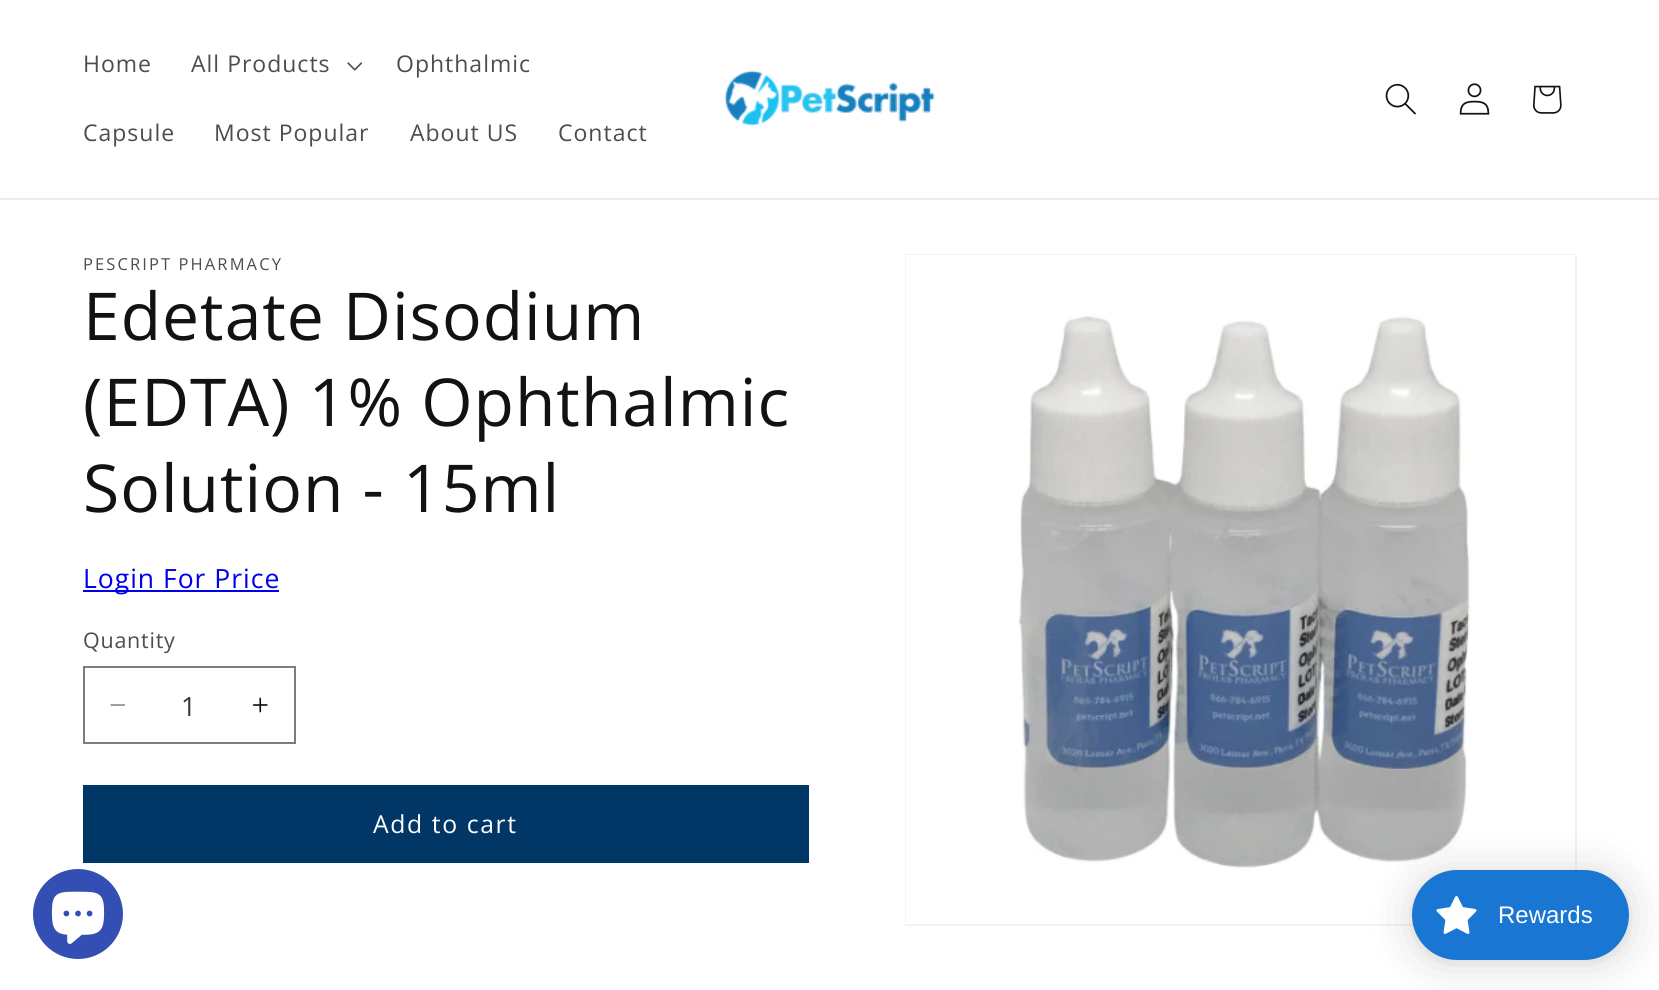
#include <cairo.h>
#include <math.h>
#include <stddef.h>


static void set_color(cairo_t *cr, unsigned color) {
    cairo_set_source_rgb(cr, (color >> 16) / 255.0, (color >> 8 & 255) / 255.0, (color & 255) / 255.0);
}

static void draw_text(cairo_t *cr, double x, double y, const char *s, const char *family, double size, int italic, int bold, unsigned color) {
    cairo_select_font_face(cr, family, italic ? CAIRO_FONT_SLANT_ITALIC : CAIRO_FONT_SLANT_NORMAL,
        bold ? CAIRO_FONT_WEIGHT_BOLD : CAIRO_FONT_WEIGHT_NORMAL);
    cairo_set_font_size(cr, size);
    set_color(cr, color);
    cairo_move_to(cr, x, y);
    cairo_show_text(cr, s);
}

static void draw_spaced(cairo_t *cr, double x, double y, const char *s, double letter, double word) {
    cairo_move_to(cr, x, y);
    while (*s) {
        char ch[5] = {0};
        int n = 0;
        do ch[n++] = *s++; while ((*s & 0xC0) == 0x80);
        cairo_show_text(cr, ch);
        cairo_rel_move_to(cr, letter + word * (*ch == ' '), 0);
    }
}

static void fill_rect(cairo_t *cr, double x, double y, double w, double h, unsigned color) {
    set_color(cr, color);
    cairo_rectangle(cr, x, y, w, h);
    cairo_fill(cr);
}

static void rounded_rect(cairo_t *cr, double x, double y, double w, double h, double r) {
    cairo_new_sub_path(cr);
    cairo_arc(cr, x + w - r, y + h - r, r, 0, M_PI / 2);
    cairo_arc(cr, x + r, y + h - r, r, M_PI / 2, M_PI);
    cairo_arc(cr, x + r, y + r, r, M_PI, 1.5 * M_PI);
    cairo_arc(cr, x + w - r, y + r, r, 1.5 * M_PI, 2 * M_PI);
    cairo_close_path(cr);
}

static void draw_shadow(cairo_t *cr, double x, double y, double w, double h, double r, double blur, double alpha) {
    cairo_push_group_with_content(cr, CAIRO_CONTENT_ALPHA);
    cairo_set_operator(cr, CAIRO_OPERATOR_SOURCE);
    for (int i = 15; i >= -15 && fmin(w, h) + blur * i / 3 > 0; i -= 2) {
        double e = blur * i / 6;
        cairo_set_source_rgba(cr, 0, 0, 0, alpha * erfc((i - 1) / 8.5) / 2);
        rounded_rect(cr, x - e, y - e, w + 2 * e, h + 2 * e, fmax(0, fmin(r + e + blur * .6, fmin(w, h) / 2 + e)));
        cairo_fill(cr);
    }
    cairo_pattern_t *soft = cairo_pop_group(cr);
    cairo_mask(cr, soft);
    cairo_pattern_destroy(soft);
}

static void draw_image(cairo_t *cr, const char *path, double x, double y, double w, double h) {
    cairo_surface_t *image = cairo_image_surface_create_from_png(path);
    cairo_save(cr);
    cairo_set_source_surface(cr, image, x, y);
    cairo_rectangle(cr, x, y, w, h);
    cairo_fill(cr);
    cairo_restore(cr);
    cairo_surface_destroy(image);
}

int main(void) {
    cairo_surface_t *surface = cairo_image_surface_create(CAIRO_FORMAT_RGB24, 1659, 990);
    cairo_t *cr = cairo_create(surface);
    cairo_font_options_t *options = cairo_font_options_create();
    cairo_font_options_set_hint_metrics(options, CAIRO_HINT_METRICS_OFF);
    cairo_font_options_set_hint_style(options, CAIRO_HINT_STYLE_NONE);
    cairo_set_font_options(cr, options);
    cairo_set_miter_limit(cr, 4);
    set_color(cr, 0xFFFFFF);
    cairo_paint(cr);
    fill_rect(cr, 0, 198, 1659, 2, 0xECECEC);
    cairo_select_font_face(cr, "Open Sans", CAIRO_FONT_SLANT_NORMAL, CAIRO_FONT_WEIGHT_NORMAL);
    cairo_set_font_size(cr, 23);
    set_color(cr, 0x4D4D4D);
    draw_spaced(cr, 83, 72, "Home", 1, 0);
    draw_spaced(cr, 191, 72, "All Products", 1, 0);
    draw_image(cr, "assets/img1.png", 347, 62, 16, 9);
    draw_spaced(cr, 396, 72, "Ophthalmic", 1, 0);
    draw_spaced(cr, 83, 141, "Capsule", 1, 0);
    draw_spaced(cr, 214, 141, "Most Popular", 1, 0);
    draw_spaced(cr, 410, 141, "About US", 1, 0);
    draw_spaced(cr, 558, 141, "Contact", 1, 0);
    draw_image(cr, "assets/img2.png", 724, 70, 211, 57);
    draw_image(cr, "assets/img3.png", 1385, 83, 31, 32);
    draw_image(cr, "assets/img4.png", 1459, 83, 31, 32);
    draw_image(cr, "assets/img5.png", 1533, 85, 29, 29);
    cairo_set_font_size(cr, 16.5);
    draw_spaced(cr, 83, 270, "PESCRIPT PHARMACY", 2.1, 0);
    cairo_set_font_size(cr, 66);
    set_color(cr, 0x121212);
    draw_spaced(cr, 83, 340, "Edetate Disodium", 1, 0);
    draw_spaced(cr, 83, 426, "(EDTA) 1% Ophthalmic", 1, 0);
    draw_spaced(cr, 83, 512, "Solution - 15ml", 1, 0);
    fill_rect(cr, 83, 590, 196, 2, 0x0000EE);
    cairo_set_font_size(cr, 26.5);
    draw_spaced(cr, 83, 588, "Login For Price", 1, 0);
    cairo_set_font_size(cr, 21.5);
    set_color(cr, 0x4D4D4D);
    draw_spaced(cr, 83, 648, "Quantity", 0.75, 0);
    draw_image(cr, "assets/img6.png", 110, 704, 15, 2);
    draw_image(cr, "assets/img7.png", 252, 697, 16, 16);
    cairo_rectangle(cr, 84, 667, 211, 76);
    set_color(cr, 0x7D7D7D);
    cairo_stroke(cr);
    draw_text(cr, 181, 716, "1", "Open Sans", 26.5, 0, 0, 0x363636);
    fill_rect(cr, 83, 785, 726, 78, 0x003767);
    cairo_set_font_size(cr, 24.75);
    set_color(cr, 0xFFFFFF);
    draw_spaced(cr, 373, 833, "Add to cart", 1.6, 0);
    cairo_rectangle(cr, 906, 255, 670, 670);
    set_color(cr, 0xF3F3F3);
    cairo_stroke(cr);
    draw_image(cr, "assets/img8.png", 906, 255, 669, 669);
    set_color(cr, 0x334FB4);
    cairo_arc(cr, 78, 914, 45, 0, 2 * M_PI);
    cairo_fill(cr);
    draw_image(cr, "assets/img9.png", 51, 891, 54, 53);
    set_color(cr, 0x000000);
    draw_shadow(cr, 1412, 873, 217, 90, 45, 22.5, 0.15);
    draw_shadow(cr, 1412, 872, 217, 90, 45, 4.5, 0.05);
    set_color(cr, 0x1976D2);
    rounded_rect(cr, 1412, 870, 217, 90, 45);
    cairo_fill(cr);
    draw_image(cr, "assets/img10.png", 1436, 896, 41, 38);
    draw_text(cr, 1498, 923, "Rewards", "Liberation Sans", 24, 0, 0, 0xFFFFFF);
    cairo_surface_write_to_png(surface, "output.png");
    cairo_font_options_destroy(options);
    cairo_destroy(cr);
    cairo_surface_destroy(surface);
    return 0;
}
